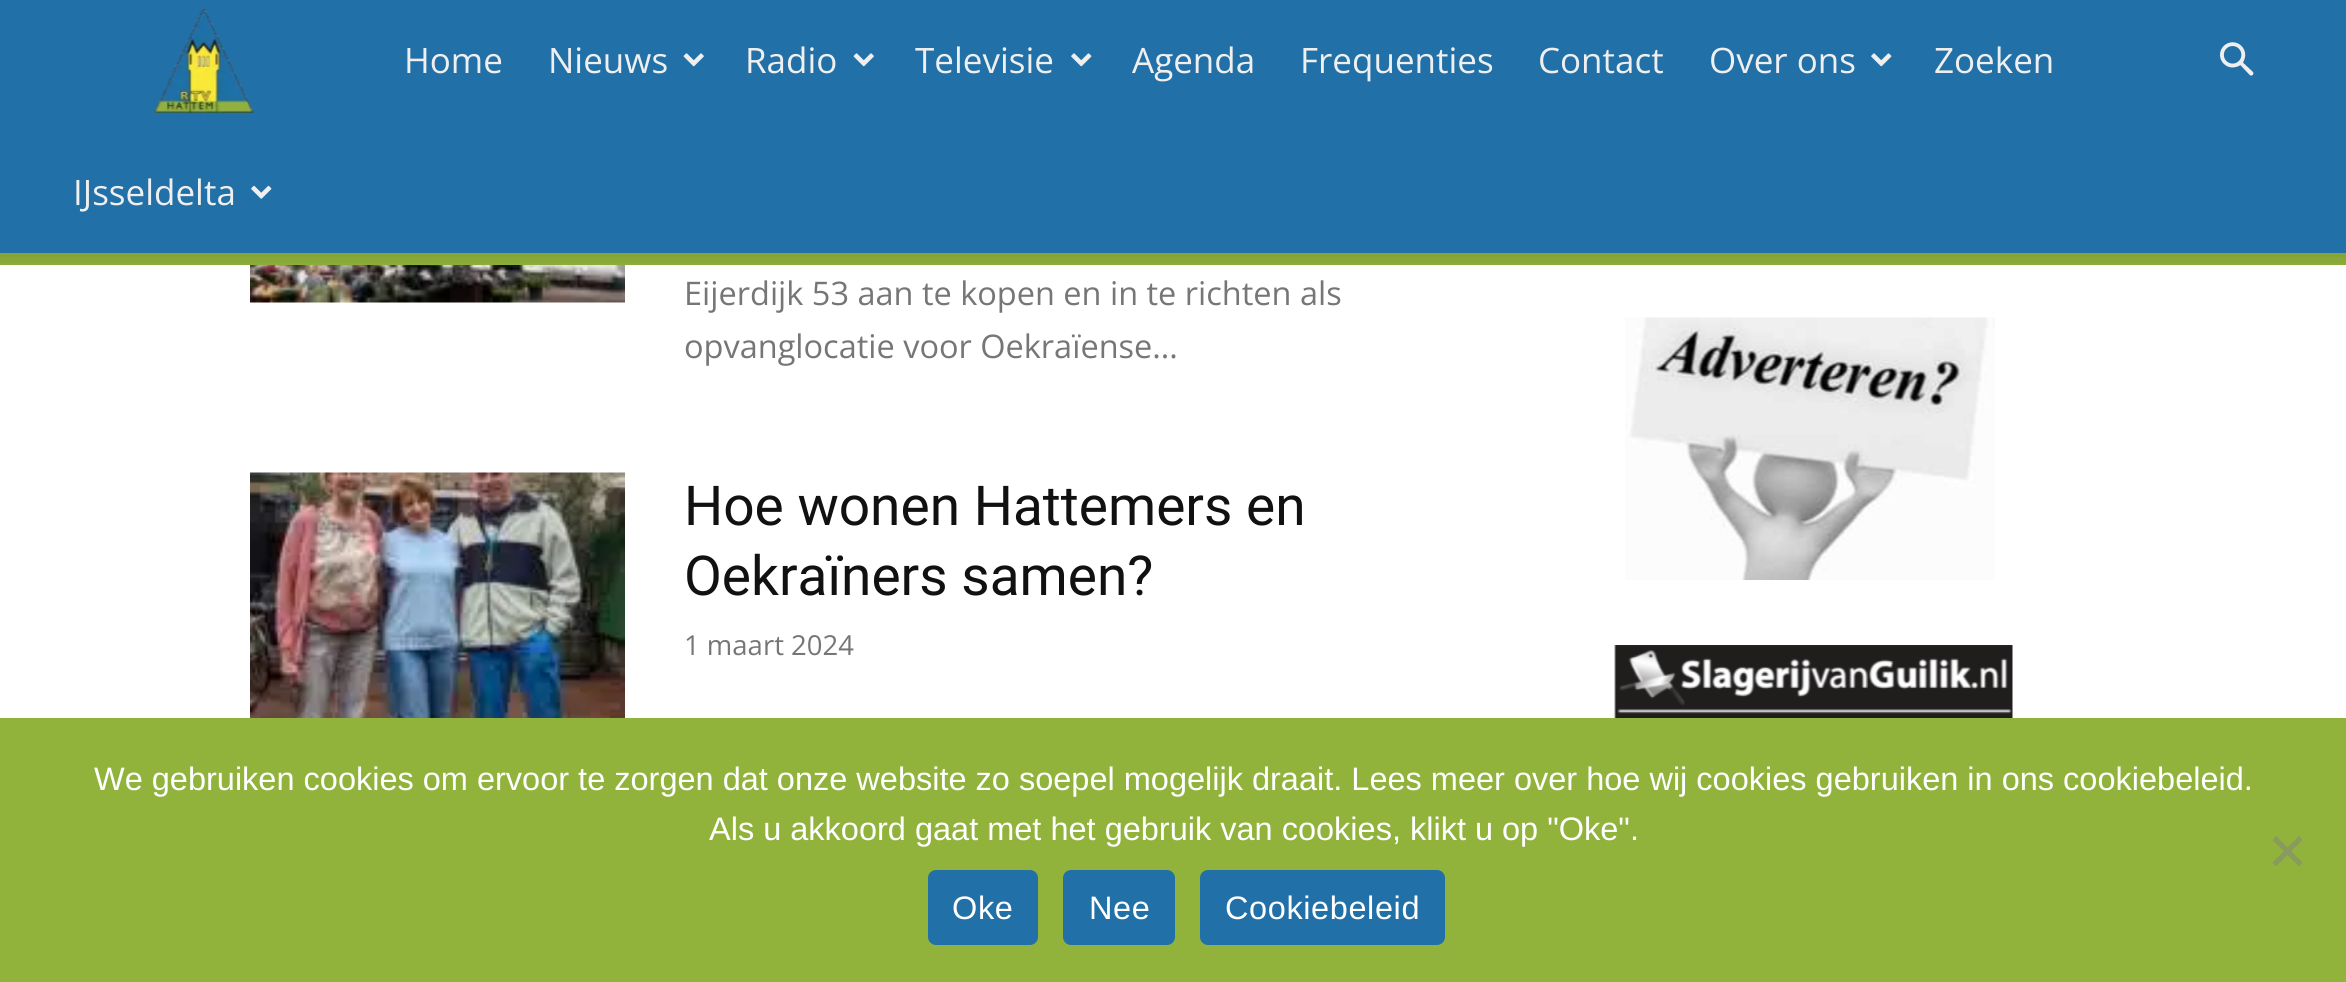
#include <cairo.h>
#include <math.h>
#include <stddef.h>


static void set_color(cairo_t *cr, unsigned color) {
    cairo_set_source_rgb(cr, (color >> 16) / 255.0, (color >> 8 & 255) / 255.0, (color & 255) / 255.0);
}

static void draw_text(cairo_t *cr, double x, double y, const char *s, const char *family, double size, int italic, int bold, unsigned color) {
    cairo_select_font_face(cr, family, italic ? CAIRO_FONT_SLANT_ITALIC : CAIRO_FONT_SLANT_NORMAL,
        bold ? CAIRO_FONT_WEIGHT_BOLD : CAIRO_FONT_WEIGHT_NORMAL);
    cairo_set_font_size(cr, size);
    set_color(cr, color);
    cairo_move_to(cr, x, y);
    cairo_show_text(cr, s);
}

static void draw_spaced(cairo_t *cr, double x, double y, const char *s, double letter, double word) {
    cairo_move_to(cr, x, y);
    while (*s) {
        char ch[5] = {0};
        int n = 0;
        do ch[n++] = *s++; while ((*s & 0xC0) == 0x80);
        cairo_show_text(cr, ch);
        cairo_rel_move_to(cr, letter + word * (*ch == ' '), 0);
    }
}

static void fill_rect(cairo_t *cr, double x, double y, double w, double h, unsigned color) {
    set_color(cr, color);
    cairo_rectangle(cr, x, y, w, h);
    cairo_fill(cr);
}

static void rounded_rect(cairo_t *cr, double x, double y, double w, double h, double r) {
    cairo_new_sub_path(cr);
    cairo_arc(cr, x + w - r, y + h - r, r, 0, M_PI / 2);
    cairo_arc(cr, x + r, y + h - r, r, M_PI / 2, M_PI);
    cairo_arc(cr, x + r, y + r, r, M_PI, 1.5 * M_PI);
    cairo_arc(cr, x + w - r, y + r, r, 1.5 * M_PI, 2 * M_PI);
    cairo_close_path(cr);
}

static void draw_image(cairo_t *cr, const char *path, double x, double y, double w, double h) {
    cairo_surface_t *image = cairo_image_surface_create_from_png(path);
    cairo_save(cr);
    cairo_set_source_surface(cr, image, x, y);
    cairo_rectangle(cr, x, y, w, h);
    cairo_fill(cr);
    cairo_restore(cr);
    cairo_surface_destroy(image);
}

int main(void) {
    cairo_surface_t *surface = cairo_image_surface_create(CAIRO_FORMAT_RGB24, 2346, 982);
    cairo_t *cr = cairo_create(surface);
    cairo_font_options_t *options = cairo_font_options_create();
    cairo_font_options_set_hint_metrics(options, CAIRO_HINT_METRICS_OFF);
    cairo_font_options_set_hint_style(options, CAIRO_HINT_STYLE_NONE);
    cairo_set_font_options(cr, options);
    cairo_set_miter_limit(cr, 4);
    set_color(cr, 0xFFFFFF);
    cairo_paint(cr);
    fill_rect(cr, 0, 0, 2346, 253, 0x2170A7);
    draw_image(cr, "assets/img1.png", 153, 7, 101, 106);
    draw_text(cr, 404, 73, "Home", "Open Sans", 35, 0, 0, 0xEFEFEF);
    draw_text(cr, 548, 73, "Nieuws", "Open Sans", 35, 0, 0, 0xEFEFEF);
    draw_image(cr, "assets/img2.png", 683, 53, 21, 14);
    draw_text(cr, 745, 73, "Radio", "Open Sans", 35, 0, 0, 0xEFEFEF);
    draw_image(cr, "assets/img2.png", 853, 53, 21, 14);
    draw_text(cr, 915, 73, "Televisie", "Open Sans", 35, 0, 0, 0xEFEFEF);
    draw_image(cr, "assets/img3.png", 1071, 53, 21, 14);
    draw_text(cr, 1132, 73, "Agenda", "Open Sans", 35, 0, 0, 0xEFEFEF);
    draw_text(cr, 1300, 73, "Frequenties", "Open Sans", 35, 0, 0, 0xEFEFEF);
    draw_text(cr, 1538, 73, "Contact", "Open Sans", 35, 0, 0, 0xEFEFEF);
    draw_text(cr, 1709, 73, "Over ons", "Open Sans", 35, 0, 0, 0xEFEFEF);
    draw_image(cr, "assets/img3.png", 1871, 53, 21, 14);
    draw_text(cr, 1934, 73, "Zoeken", "Open Sans", 35, 0, 0, 0xEFEFEF);
    draw_text(cr, 73, 205, "IJsseldelta", "Open Sans", 35, 0, 0, 0xEFEFEF);
    draw_image(cr, "assets/img4.png", 251, 185, 21, 14);
    draw_image(cr, "assets/img5.png", 2220, 42, 34, 34);
    fill_rect(cr, 0, 253, 2346, 12, 0x91B33C);
    draw_image(cr, "assets/img6.png", 0, 253, 2346, 12);
    draw_image(cr, "assets/img7.png", 250, 265, 375, 38);
    draw_text(cr, 684, 305, "Eijerdijk 53 aan te kopen en in te richten als", "Open Sans", 32.5, 0, 0, 0x767676);
    draw_text(cr, 684, 358, "opvanglocatie voor Oekraïense...", "Open Sans", 32.5, 0, 0, 0x767676);
    draw_image(cr, "assets/img8.png", 250, 472, 375, 246);
    draw_text(cr, 684, 525, "Hoe wonen Hattemers en", "Roboto", 55, 0, 0, 0x111111);
    draw_text(cr, 684, 595, "Oekraïners samen?", "Roboto", 55, 0, 0, 0x111111);
    draw_text(cr, 684, 655, "1 maart 2024", "Open Sans", 27.5, 0, 0, 0x767676);
    draw_image(cr, "assets/img9.png", 1625, 317, 370, 263);
    draw_image(cr, "assets/img10.png", 1614, 645, 399, 73);
    fill_rect(cr, 0, 718, 2346, 264, 0x91B33C);
    draw_text(cr, 94, 790, "We gebruiken cookies om ervoor te zorgen dat onze website zo soepel mogelijk draait. Lees meer over hoe wij cookies gebruiken in ons cookiebeleid.", "Liberation Sans", 32.5, 0, 0, 0xFFFFFF);
    draw_text(cr, 709, 840, "Als u akkoord gaat met het gebruik van cookies, klikt u op \"Oke\".", "Liberation Sans", 32.5, 0, 0, 0xFFFFFF);
    set_color(cr, 0x899A5E);
    cairo_new_path(cr);
    cairo_move_to(cr, 2299, 836);
    cairo_line_to(cr, 2302.5, 840);
    cairo_line_to(cr, 2276, 866.5);
    cairo_line_to(cr, 2272.5, 862.5);
    cairo_close_path(cr);
    cairo_fill(cr);
    cairo_new_path(cr);
    cairo_move_to(cr, 2272.5, 840);
    cairo_line_to(cr, 2276, 836);
    cairo_line_to(cr, 2302.5, 862.5);
    cairo_line_to(cr, 2299, 866.5);
    cairo_close_path(cr);
    cairo_fill(cr);
    set_color(cr, 0x2170A7);
    rounded_rect(cr, 928, 870, 110, 75, 8);
    cairo_fill(cr);
    set_color(cr, 0xFFFFFF);
    draw_spaced(cr, 952, 919, "Oke", 0.6, 0);
    set_color(cr, 0x2170A7);
    rounded_rect(cr, 1063, 870, 112, 75, 8);
    cairo_fill(cr);
    set_color(cr, 0xFFFFFF);
    draw_spaced(cr, 1089, 919, "Nee", 0.6, 0);
    set_color(cr, 0x2170A7);
    rounded_rect(cr, 1200, 870, 245, 75, 8);
    cairo_fill(cr);
    set_color(cr, 0xFFFFFF);
    draw_spaced(cr, 1225, 919, "Cookiebeleid", 0.6, 0);
    cairo_surface_write_to_png(surface, "output.png");
    cairo_font_options_destroy(options);
    cairo_destroy(cr);
    cairo_surface_destroy(surface);
    return 0;
}
